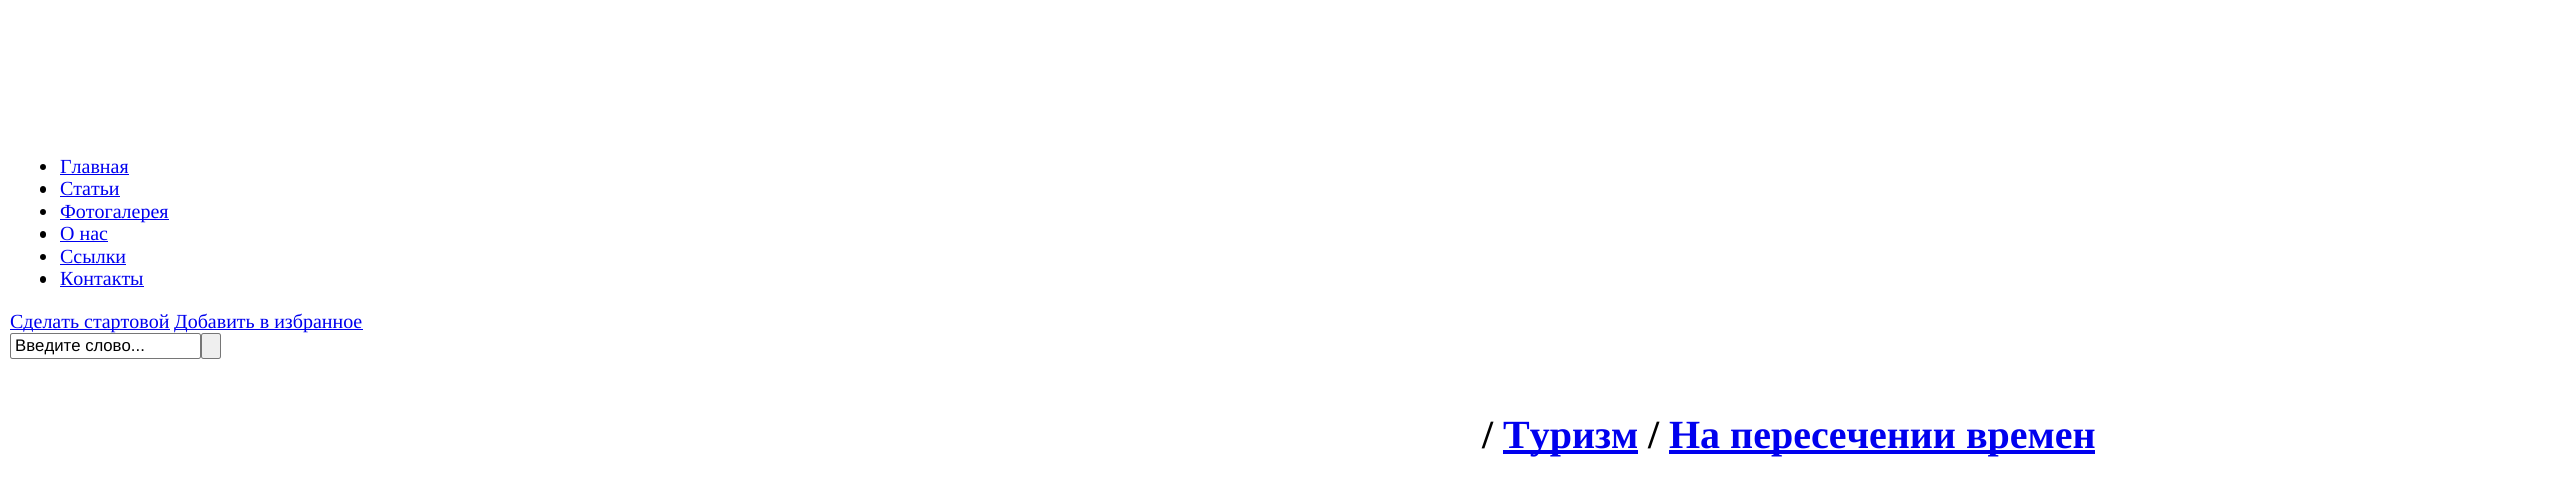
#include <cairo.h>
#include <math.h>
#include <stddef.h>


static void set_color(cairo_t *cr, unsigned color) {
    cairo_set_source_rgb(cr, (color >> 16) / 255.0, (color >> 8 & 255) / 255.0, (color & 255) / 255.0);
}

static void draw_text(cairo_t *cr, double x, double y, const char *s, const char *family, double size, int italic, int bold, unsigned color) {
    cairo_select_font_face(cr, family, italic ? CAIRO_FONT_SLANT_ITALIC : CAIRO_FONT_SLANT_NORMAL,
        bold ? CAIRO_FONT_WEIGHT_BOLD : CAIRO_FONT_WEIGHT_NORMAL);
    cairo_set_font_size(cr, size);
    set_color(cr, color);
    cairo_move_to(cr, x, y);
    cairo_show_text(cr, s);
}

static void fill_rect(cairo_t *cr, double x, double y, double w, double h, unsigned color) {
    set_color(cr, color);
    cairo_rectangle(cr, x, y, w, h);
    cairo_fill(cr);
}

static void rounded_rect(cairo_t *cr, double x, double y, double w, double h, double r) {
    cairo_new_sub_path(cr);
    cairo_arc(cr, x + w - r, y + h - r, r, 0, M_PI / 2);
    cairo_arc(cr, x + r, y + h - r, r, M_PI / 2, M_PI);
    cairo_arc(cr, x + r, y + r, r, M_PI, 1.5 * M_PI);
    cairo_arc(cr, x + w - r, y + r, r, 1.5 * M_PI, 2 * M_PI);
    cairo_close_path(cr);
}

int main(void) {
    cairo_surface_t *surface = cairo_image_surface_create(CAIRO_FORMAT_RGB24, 2552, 487);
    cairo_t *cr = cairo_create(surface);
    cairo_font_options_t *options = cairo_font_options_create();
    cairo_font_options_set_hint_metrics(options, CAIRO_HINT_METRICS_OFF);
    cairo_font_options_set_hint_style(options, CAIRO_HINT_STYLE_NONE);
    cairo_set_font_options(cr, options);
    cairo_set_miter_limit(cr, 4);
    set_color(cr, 0xFFFFFF);
    cairo_paint(cr);
    set_color(cr, 0x000000);
    cairo_arc(cr, 43, 167, 3, 0, 2 * M_PI);
    cairo_fill(cr);
    draw_text(cr, 60, 173, "Главная", "Liberation Serif", 20, 0, 0, 0x0000EE);
    fill_rect(cr, 60, 174, 69, 1, 0x0000EE);
    set_color(cr, 0x000000);
    rounded_rect(cr, 40, 186, 6, 7, 3);
    cairo_fill(cr);
    draw_text(cr, 60, 195, "Статьи", "Liberation Serif", 20, 0, 0, 0x0000EE);
    fill_rect(cr, 60, 196, 60, 1, 0x0000EE);
    set_color(cr, 0x000000);
    cairo_new_path(cr);
    cairo_arc(cr, 43, 212, 3, 0, 2 * M_PI);
    cairo_fill(cr);
    fill_rect(cr, 60, 219, 109, 1, 0x0000EE);
    draw_text(cr, 60, 218, "Фотогалерея", "Liberation Serif", 20, 0, 0, 0x0000EE);
    set_color(cr, 0x000000);
    rounded_rect(cr, 40, 231, 6, 7, 3);
    cairo_fill(cr);
    draw_text(cr, 60, 240, "О нас", "Liberation Serif", 20, 0, 0, 0x0000EE);
    fill_rect(cr, 60, 241, 48, 1, 0x0000EE);
    set_color(cr, 0x000000);
    cairo_new_path(cr);
    cairo_arc(cr, 43, 257, 3, 0, 2 * M_PI);
    cairo_fill(cr);
    draw_text(cr, 60, 263, "Ссылки", "Liberation Serif", 20, 0, 0, 0x0000EE);
    fill_rect(cr, 60, 264, 66, 1, 0x0000EE);
    set_color(cr, 0x000000);
    rounded_rect(cr, 40, 276, 6, 7, 3);
    cairo_fill(cr);
    draw_text(cr, 60, 285, "Контакты", "Liberation Serif", 20, 0, 0, 0x0000EE);
    fill_rect(cr, 60, 286, 84, 1, 0x0000EE);
    fill_rect(cr, 10, 329, 160, 1, 0x0000EE);
    draw_text(cr, 10, 328, "Сделать стартовой", "Liberation Serif", 20, 0, 0, 0x0000EE);
    fill_rect(cr, 175, 329, 188, 1, 0x0000EE);
    draw_text(cr, 174, 328, "Добавить в избранное", "Liberation Serif", 20, 0, 0, 0x0000EE);
    rounded_rect(cr, 10.5, 333.5, 190, 25, 2);
    set_color(cr, 0x767676);
    cairo_set_line_width(cr, 1);
    cairo_stroke(cr);
    draw_text(cr, 15, 351, "Введите слово...", "Liberation Sans", 16.75, 0, 0, 0x000000);
    set_color(cr, 0xEFEFEF);
    rounded_rect(cr, 201.5, 333.5, 19, 25, 2);
    cairo_fill_preserve(cr);
    set_color(cr, 0x767676);
    cairo_stroke(cr);
    draw_text(cr, 1482, 448, "/", "Liberation Serif", 40, 0, 1, 0x000000);
    fill_rect(cr, 1503, 450, 135, 4, 0x0000EE);
    draw_text(cr, 1503, 448, "Туризм", "Liberation Serif", 40, 0, 1, 0x0000EE);
    draw_text(cr, 1648, 448, "/", "Liberation Serif", 40, 0, 1, 0x000000);
    fill_rect(cr, 1669, 450, 426, 4, 0x0000EE);
    draw_text(cr, 1669, 448, "На пересечении времен", "Liberation Serif", 40, 0, 1, 0x0000EE);
    cairo_surface_write_to_png(surface, "output.png");
    cairo_font_options_destroy(options);
    cairo_destroy(cr);
    cairo_surface_destroy(surface);
    return 0;
}
